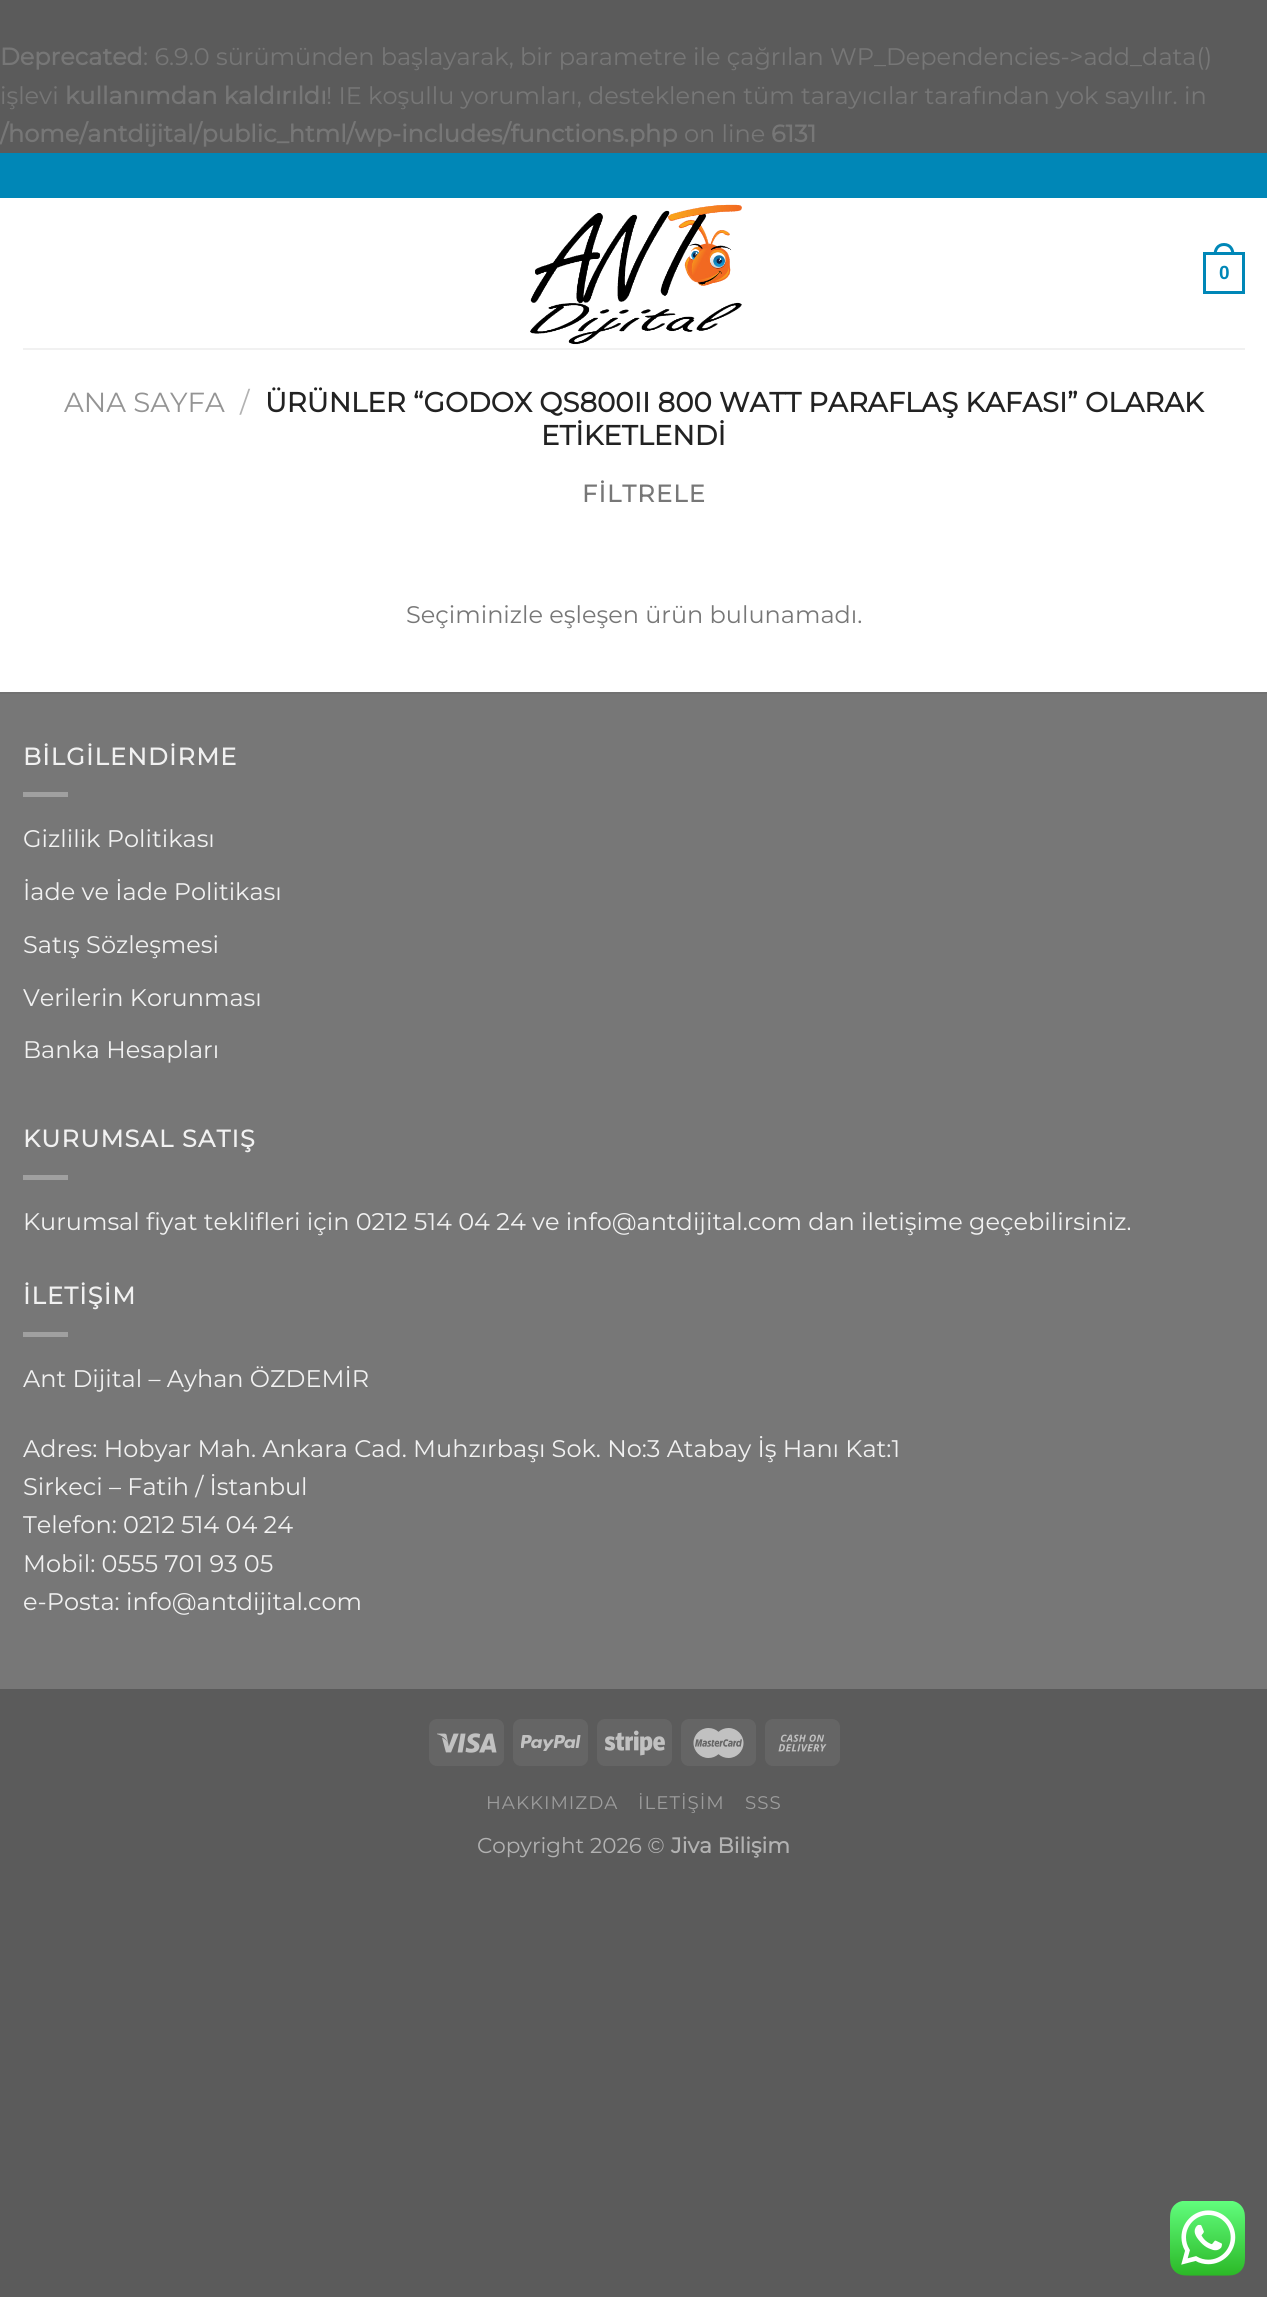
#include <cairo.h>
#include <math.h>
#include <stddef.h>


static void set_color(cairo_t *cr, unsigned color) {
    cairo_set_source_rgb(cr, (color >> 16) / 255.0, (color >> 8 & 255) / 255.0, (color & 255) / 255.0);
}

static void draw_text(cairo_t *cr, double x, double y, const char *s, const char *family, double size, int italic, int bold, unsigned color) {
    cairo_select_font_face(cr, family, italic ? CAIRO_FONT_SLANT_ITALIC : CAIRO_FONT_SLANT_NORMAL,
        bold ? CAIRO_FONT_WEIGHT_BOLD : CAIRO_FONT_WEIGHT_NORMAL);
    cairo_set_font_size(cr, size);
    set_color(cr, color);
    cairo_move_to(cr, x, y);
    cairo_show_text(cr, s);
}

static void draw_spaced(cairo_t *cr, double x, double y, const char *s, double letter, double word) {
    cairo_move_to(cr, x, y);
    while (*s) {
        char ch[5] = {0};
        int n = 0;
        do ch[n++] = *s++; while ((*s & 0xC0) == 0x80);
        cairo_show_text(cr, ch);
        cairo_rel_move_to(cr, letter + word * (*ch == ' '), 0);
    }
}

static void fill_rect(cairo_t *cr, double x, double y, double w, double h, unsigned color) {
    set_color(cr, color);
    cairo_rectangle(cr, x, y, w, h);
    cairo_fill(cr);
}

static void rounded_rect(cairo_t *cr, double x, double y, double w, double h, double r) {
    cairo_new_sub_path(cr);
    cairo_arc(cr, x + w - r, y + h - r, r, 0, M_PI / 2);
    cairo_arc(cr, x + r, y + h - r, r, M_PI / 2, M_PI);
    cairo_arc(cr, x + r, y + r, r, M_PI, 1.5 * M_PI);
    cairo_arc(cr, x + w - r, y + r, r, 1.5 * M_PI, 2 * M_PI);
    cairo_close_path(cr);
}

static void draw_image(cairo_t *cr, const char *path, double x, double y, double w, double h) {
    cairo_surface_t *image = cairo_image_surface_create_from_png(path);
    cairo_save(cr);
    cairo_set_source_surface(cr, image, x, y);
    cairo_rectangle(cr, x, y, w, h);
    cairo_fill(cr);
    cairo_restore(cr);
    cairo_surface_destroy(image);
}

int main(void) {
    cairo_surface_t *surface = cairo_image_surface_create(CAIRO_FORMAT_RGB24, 1267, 2297);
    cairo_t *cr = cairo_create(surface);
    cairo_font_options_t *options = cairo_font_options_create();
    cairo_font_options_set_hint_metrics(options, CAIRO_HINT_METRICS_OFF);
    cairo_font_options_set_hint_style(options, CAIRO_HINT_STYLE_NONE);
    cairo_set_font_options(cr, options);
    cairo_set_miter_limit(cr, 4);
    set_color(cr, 0x5B5B5B);
    cairo_paint(cr);
    draw_text(cr, 0, 65, "Deprecated", "Montserrat", 24, 0, 1, 0x777777);
    draw_text(cr, 143, 65, ": 6.9.0 sürümünden başlayarak, bir parametre ile çağrılan WP_Dependencies->add_data()", "Montserrat Thin", 24, 0, 0, 0x777777);
    draw_text(cr, 0, 104, "işlevi", "Montserrat Thin", 24, 0, 0, 0x777777);
    draw_text(cr, 65, 104, "kullanımdan kaldırıldı", "Montserrat", 24, 0, 1, 0x777777);
    draw_text(cr, 326, 104, "! IE koşullu yorumları, desteklenen tüm tarayıcılar tarafından yok sayılır. in", "Montserrat Thin", 24, 0, 0, 0x777777);
    draw_text(cr, 0, 142, "/home/antdijital/public_html/wp-includes/functions.php", "Montserrat", 24, 0, 1, 0x777777);
    draw_text(cr, 684, 142, "on line", "Montserrat Thin", 24, 0, 0, 0x777777);
    draw_text(cr, 771, 142, "6131", "Montserrat", 24, 0, 1, 0x777777);
    fill_rect(cr, 0, 198, 1267, 494, 0xFFFFFF);
    fill_rect(cr, 0, 153, 1267, 45, 0x0087B7);
    draw_image(cr, "assets/img1.png", 530, 204, 212, 141);
    cairo_rectangle(cr, 1204.5, 253.5, 39, 39);
    cairo_set_line_width(cr, 3);
    cairo_stroke(cr);
    cairo_set_fill_rule(cr, CAIRO_FILL_RULE_EVEN_ODD);
    cairo_new_path(cr);
    cairo_move_to(cr, 1224, 243);
    cairo_curve_to(cr, 1231, 243, 1234.5, 248.5, 1234.5, 255);
    cairo_line_to(cr, 1213.5, 255);
    cairo_curve_to(cr, 1213.5, 248.5, 1217, 243, 1224, 243);
    cairo_close_path(cr);
    cairo_move_to(cr, 1224, 246);
    cairo_curve_to(cr, 1229.5, 246, 1231.5, 250.5, 1231.5, 255);
    cairo_line_to(cr, 1216.5, 255);
    cairo_curve_to(cr, 1216.5, 250.5, 1218.5, 246, 1224, 246);
    cairo_close_path(cr);
    cairo_fill(cr);
    draw_text(cr, 1219, 279, "0", "Liberation Sans", 19, 0, 1, 0x0087B7);
    fill_rect(cr, 23, 348, 1222, 2, 0xF1F1F1);
    draw_text(cr, 64, 412, "ANA SAYFA", "Montserrat Thin", 27.6, 0, 0, 0x949494);
    draw_text(cr, 240, 412, "/", "Montserrat Thin", 27.6, 0, 0, 0xB2B2B2);
    draw_text(cr, 265, 412, "ÜRÜNLER “GODOX QS800II 800 WATT PARAFLAŞ KAFASI” OLARAK", "Montserrat", 27.6, 0, 1, 0x222222);
    draw_text(cr, 541, 445, "ETİKETLENDİ", "Montserrat", 27.6, 0, 1, 0x222222);
    cairo_set_font_size(cr, 24);
    set_color(cr, 0x777777);
    draw_spaced(cr, 582, 502, "FİLTRELE", 1.25, 0);
    draw_text(cr, 406, 623, "Seçiminizle eşleşen ürün bulunamadı.", "Montserrat Thin", 24, 0, 0, 0x777777);
    fill_rect(cr, 0, 694, 1267, 995, 0x777777);
    fill_rect(cr, 0, 692, 1267, 2, 0x717171);
    cairo_select_font_face(cr, "Montserrat", CAIRO_FONT_SLANT_NORMAL, CAIRO_FONT_WEIGHT_BOLD);
    set_color(cr, 0xF1F1F1);
    draw_spaced(cr, 23, 765, "BİLGİLENDİRME", 1.25, 0);
    fill_rect(cr, 23, 792, 45, 5, 0xA0A0A0);
    draw_text(cr, 23, 847, "Gizlilik Politikası", "Montserrat Thin", 24, 0, 0, 0xF1F1F1);
    draw_text(cr, 23, 900, "İade ve İade Politikası", "Montserrat Thin", 24, 0, 0, 0xF1F1F1);
    draw_text(cr, 23, 953, "Satış Sözleşmesi", "Montserrat Thin", 24, 0, 0, 0xF1F1F1);
    draw_text(cr, 23, 1006, "Verilerin Korunması", "Montserrat Thin", 24, 0, 0, 0xF1F1F1);
    draw_text(cr, 23, 1058, "Banka Hesapları", "Montserrat Thin", 24, 0, 0, 0xF1F1F1);
    cairo_select_font_face(cr, "Montserrat", CAIRO_FONT_SLANT_NORMAL, CAIRO_FONT_WEIGHT_BOLD);
    draw_spaced(cr, 23, 1147, "KURUMSAL SATIŞ", 1.25, 0);
    fill_rect(cr, 23, 1175, 45, 5, 0xA0A0A0);
    draw_text(cr, 23, 1230, "Kurumsal fiyat teklifleri için 0212 514 04 24 ve info@antdijital.com dan iletişime geçebilirsiniz.", "Montserrat Thin", 24, 0, 0, 0xF1F1F1);
    cairo_select_font_face(cr, "Montserrat", CAIRO_FONT_SLANT_NORMAL, CAIRO_FONT_WEIGHT_BOLD);
    draw_spaced(cr, 23, 1304, "İLETİŞİM", 1.25, 0);
    fill_rect(cr, 23, 1332, 45, 5, 0xA0A0A0);
    draw_text(cr, 23, 1387, "Ant Dijital – Ayhan ÖZDEMİR", "Montserrat Thin", 24, 0, 0, 0xF1F1F1);
    draw_text(cr, 23, 1457, "Adres: Hobyar Mah. Ankara Cad. Muhzırbaşı Sok. No:3 Atabay İş Hanı Kat:1", "Montserrat Thin", 24, 0, 0, 0xF1F1F1);
    draw_text(cr, 23, 1495, "Sirkeci – Fatih / İstanbul", "Montserrat Thin", 24, 0, 0, 0xF1F1F1);
    draw_text(cr, 23, 1533, "Telefon: 0212 514 04 24", "Montserrat Thin", 24, 0, 0, 0xF1F1F1);
    draw_text(cr, 23, 1572, "Mobil: 0555 701 93 05", "Montserrat Thin", 24, 0, 0, 0xF1F1F1);
    draw_text(cr, 23, 1610, "e-Posta: info@antdijital.com", "Montserrat Thin", 24, 0, 0, 0xF1F1F1);
    set_color(cr, 0x656565);
    rounded_rect(cr, 429, 1719, 75, 47, 8);
    cairo_fill(cr);
    draw_image(cr, "assets/img2.png", 437, 1733, 60, 20);
    rounded_rect(cr, 513, 1719, 75, 47, 8);
    cairo_fill(cr);
    draw_image(cr, "assets/img3.png", 521, 1735, 60, 16);
    rounded_rect(cr, 597, 1719, 75, 47, 8);
    cairo_fill(cr);
    draw_image(cr, "assets/img4.png", 605, 1730, 60, 26);
    rounded_rect(cr, 681, 1719, 75, 47, 8);
    cairo_fill(cr);
    draw_image(cr, "assets/img5.png", 693, 1728, 51, 30);
    rounded_rect(cr, 765, 1719, 75, 47, 8);
    cairo_fill(cr);
    draw_image(cr, "assets/img6.png", 778, 1734, 49, 18);
    cairo_set_font_size(cr, 18.25);
    set_color(cr, 0x9D9D9D);
    draw_spaced(cr, 486, 1809, "HAKKIMIZDA", 1, 0);
    draw_spaced(cr, 638, 1809, "İLETİŞİM", 1, 0);
    draw_spaced(cr, 745, 1809, "SSS", 1, 0);
    draw_text(cr, 477, 1853, "Copyright 2026 ©", "Montserrat Thin", 21.5, 0, 0, 0xB2B2B2);
    draw_text(cr, 671, 1853, "Jiva Bilişim", "Montserrat", 21.5, 0, 1, 0xB2B2B2);
    draw_image(cr, "assets/img7.png", 1170, 2201, 75, 75);
    cairo_surface_write_to_png(surface, "output.png");
    cairo_font_options_destroy(options);
    cairo_destroy(cr);
    cairo_surface_destroy(surface);
    return 0;
}
